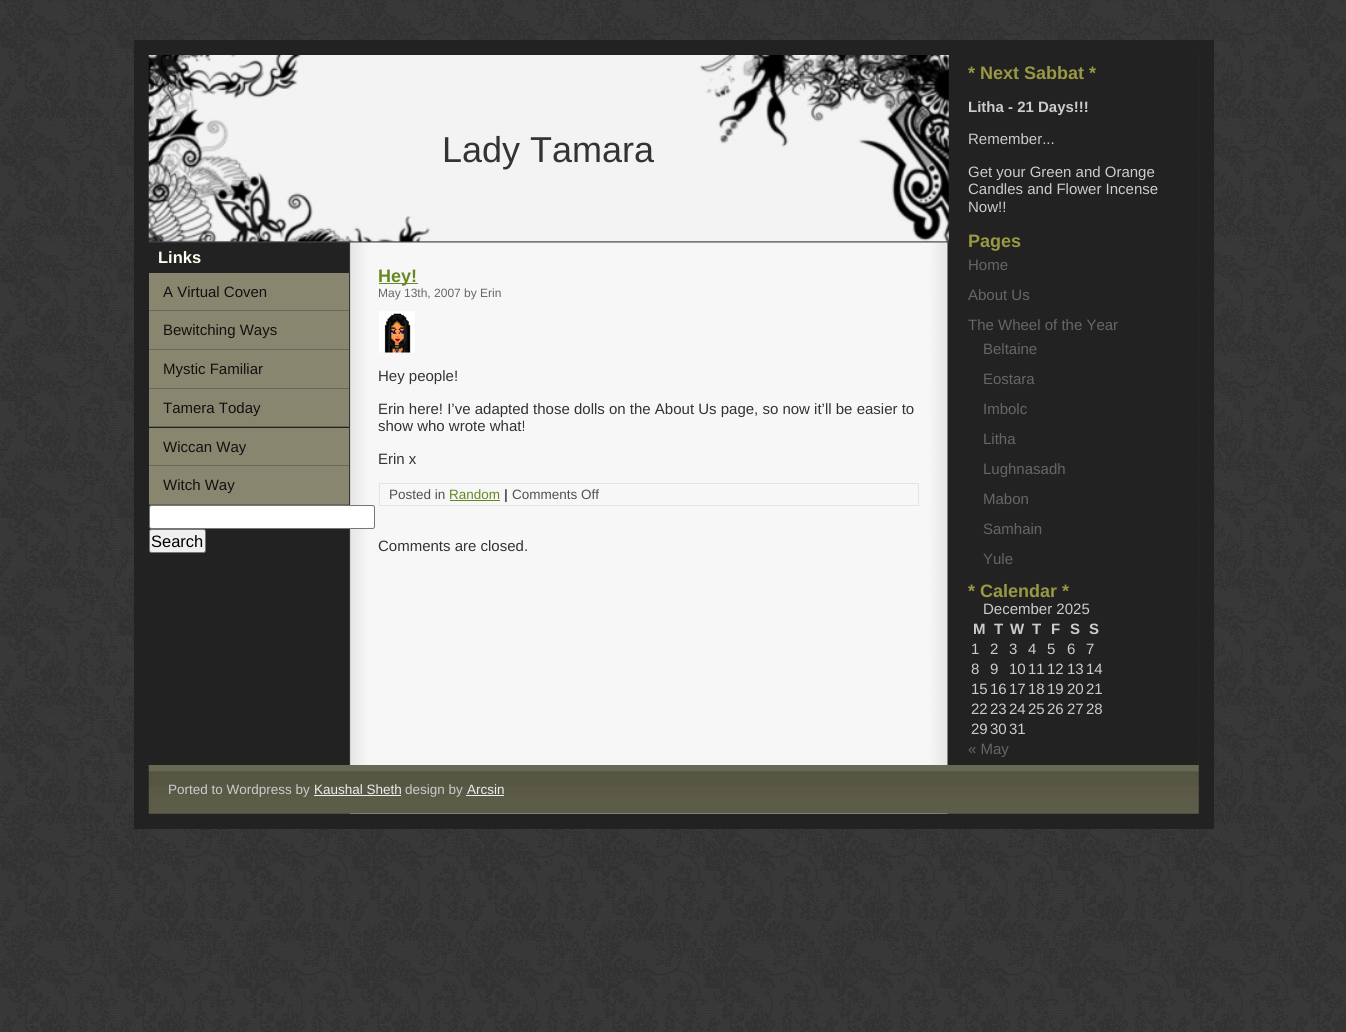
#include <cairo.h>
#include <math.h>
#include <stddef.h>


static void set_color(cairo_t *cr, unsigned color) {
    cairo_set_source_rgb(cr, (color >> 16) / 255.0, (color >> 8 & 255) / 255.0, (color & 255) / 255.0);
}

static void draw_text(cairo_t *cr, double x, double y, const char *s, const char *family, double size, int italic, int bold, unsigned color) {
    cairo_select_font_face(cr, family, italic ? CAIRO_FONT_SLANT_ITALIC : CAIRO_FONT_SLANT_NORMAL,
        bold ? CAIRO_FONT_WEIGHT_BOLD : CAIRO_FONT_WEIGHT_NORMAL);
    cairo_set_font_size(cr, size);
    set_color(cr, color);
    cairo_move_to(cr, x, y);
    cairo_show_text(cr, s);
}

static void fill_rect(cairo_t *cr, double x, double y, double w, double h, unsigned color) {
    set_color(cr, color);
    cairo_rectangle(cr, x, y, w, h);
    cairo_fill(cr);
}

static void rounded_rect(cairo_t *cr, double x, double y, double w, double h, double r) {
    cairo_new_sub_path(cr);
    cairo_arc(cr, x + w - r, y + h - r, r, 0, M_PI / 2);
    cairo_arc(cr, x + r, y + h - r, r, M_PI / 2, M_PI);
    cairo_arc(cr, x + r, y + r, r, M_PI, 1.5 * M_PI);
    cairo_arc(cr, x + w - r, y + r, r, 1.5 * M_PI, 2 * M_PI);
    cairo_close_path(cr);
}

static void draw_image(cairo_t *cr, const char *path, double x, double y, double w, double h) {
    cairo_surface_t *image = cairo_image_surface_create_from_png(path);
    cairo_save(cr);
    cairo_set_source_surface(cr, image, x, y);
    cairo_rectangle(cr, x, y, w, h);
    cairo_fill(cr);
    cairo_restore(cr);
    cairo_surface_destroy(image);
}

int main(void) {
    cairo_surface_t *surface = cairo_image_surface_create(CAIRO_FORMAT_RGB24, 1346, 1032);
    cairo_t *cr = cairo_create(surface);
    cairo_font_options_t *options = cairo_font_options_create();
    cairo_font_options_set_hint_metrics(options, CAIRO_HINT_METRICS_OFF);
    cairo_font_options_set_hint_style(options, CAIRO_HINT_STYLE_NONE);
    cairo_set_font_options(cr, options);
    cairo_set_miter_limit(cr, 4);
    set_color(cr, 0xFFFFFF);
    cairo_paint(cr);
    draw_image(cr, "assets/img1.png", 0, 0, 1346, 1032);
    draw_image(cr, "assets/img2.png", 149, 55, 1050, 759);
    cairo_rectangle(cr, 141.5, 47.5, 1065, 774);
    set_color(cr, 0x222222);
    cairo_set_line_width(cr, 15);
    cairo_stroke(cr);
    draw_image(cr, "assets/img3.png", 148, 55, 801, 188);
    draw_text(cr, 442, 162, "Lady Tamara", "Liberation Sans", 36, 0, 0, 0x333333);
    draw_text(cr, 968, 79, "* Next Sabbat *", "Liberation Sans", 18, 0, 1, 0x999944);
    draw_text(cr, 968, 112, "Litha - 21 Days!!!", "Liberation Sans", 15, 0, 1, 0xCCCCCC);
    draw_text(cr, 968, 144, "Remember...", "Liberation Sans", 15, 0, 0, 0xCCCCCC);
    draw_text(cr, 968, 177, "Get your Green and Orange", "Liberation Sans", 15, 0, 0, 0xCCCCCC);
    draw_text(cr, 968, 194, "Candles and Flower Incense", "Liberation Sans", 15, 0, 0, 0xCCCCCC);
    draw_text(cr, 968, 212, "Now!!", "Liberation Sans", 15, 0, 0, 0xCCCCCC);
    draw_text(cr, 968, 247, "Pages", "Liberation Sans", 18, 0, 1, 0x999944);
    draw_text(cr, 968, 270, "Home", "Liberation Sans", 15, 0, 0, 0x666666);
    draw_text(cr, 968, 300, "About Us", "Liberation Sans", 15, 0, 0, 0x666666);
    draw_text(cr, 968, 330, "The Wheel of the Year", "Liberation Sans", 15, 0, 0, 0x666666);
    draw_text(cr, 983, 354, "Beltaine", "Liberation Sans", 15, 0, 0, 0x666666);
    draw_text(cr, 983, 384, "Eostara", "Liberation Sans", 15, 0, 0, 0x666666);
    draw_text(cr, 983, 414, "Imbolc", "Liberation Sans", 15, 0, 0, 0x666666);
    draw_text(cr, 983, 444, "Litha", "Liberation Sans", 15, 0, 0, 0x666666);
    draw_text(cr, 983, 474, "Lughnasadh", "Liberation Sans", 15, 0, 0, 0x666666);
    draw_text(cr, 983, 504, "Mabon", "Liberation Sans", 15, 0, 0, 0x666666);
    draw_text(cr, 983, 534, "Samhain", "Liberation Sans", 15, 0, 0, 0x666666);
    draw_text(cr, 983, 564, "Yule", "Liberation Sans", 15, 0, 0, 0x666666);
    draw_text(cr, 968, 597, "* Calendar *", "Liberation Sans", 18, 0, 1, 0x999944);
    draw_text(cr, 983, 614, "December 2025", "Liberation Sans", 15, 0, 0, 0xCCCCCC);
    draw_text(cr, 973, 634, "M", "Liberation Sans", 15, 0, 1, 0xCCCCCC);
    draw_text(cr, 994, 634, "T", "Liberation Sans", 15, 0, 1, 0xCCCCCC);
    draw_text(cr, 1010, 634, "W", "Liberation Sans", 15, 0, 1, 0xCCCCCC);
    draw_text(cr, 1032, 634, "T", "Liberation Sans", 15, 0, 1, 0xCCCCCC);
    draw_text(cr, 1051, 634, "F", "Liberation Sans", 15, 0, 1, 0xCCCCCC);
    draw_text(cr, 1070, 634, "S", "Liberation Sans", 15, 0, 1, 0xCCCCCC);
    draw_text(cr, 1089, 634, "S", "Liberation Sans", 15, 0, 1, 0xCCCCCC);
    draw_text(cr, 971, 654, "1", "Liberation Sans", 15, 0, 0, 0xCCCCCC);
    draw_text(cr, 990, 654, "2", "Liberation Sans", 15, 0, 0, 0xCCCCCC);
    draw_text(cr, 1009, 654, "3", "Liberation Sans", 15, 0, 0, 0xCCCCCC);
    draw_text(cr, 1028, 654, "4", "Liberation Sans", 15, 0, 0, 0xCCCCCC);
    draw_text(cr, 1047, 654, "5", "Liberation Sans", 15, 0, 0, 0xCCCCCC);
    draw_text(cr, 1067, 654, "6", "Liberation Sans", 15, 0, 0, 0xCCCCCC);
    draw_text(cr, 1086, 654, "7", "Liberation Sans", 15, 0, 0, 0xCCCCCC);
    draw_text(cr, 971, 674, "8", "Liberation Sans", 15, 0, 0, 0xCCCCCC);
    draw_text(cr, 990, 674, "9", "Liberation Sans", 15, 0, 0, 0xCCCCCC);
    draw_text(cr, 1009, 674, "10", "Liberation Sans", 15, 0, 0, 0xCCCCCC);
    draw_text(cr, 1028, 674, "11", "Liberation Sans", 15, 0, 0, 0xCCCCCC);
    draw_text(cr, 1047, 674, "12", "Liberation Sans", 15, 0, 0, 0xCCCCCC);
    draw_text(cr, 1067, 674, "13", "Liberation Sans", 15, 0, 0, 0xCCCCCC);
    draw_text(cr, 1086, 674, "14", "Liberation Sans", 15, 0, 0, 0xCCCCCC);
    draw_text(cr, 971, 694, "15", "Liberation Sans", 15, 0, 0, 0xCCCCCC);
    draw_text(cr, 990, 694, "16", "Liberation Sans", 15, 0, 0, 0xCCCCCC);
    draw_text(cr, 1009, 694, "17", "Liberation Sans", 15, 0, 0, 0xCCCCCC);
    draw_text(cr, 1028, 694, "18", "Liberation Sans", 15, 0, 0, 0xCCCCCC);
    draw_text(cr, 1047, 694, "19", "Liberation Sans", 15, 0, 0, 0xCCCCCC);
    draw_text(cr, 1067, 694, "20", "Liberation Sans", 15, 0, 0, 0xCCCCCC);
    draw_text(cr, 1086, 694, "21", "Liberation Sans", 15, 0, 0, 0xCCCCCC);
    draw_text(cr, 971, 714, "22", "Liberation Sans", 15, 0, 0, 0xCCCCCC);
    draw_text(cr, 990, 714, "23", "Liberation Sans", 15, 0, 0, 0xCCCCCC);
    draw_text(cr, 1009, 714, "24", "Liberation Sans", 15, 0, 0, 0xCCCCCC);
    draw_text(cr, 1028, 714, "25", "Liberation Sans", 15, 0, 0, 0xCCCCCC);
    draw_text(cr, 1047, 714, "26", "Liberation Sans", 15, 0, 0, 0xCCCCCC);
    draw_text(cr, 1067, 714, "27", "Liberation Sans", 15, 0, 0, 0xCCCCCC);
    draw_text(cr, 1086, 714, "28", "Liberation Sans", 15, 0, 0, 0xCCCCCC);
    draw_text(cr, 971, 734, "29", "Liberation Sans", 15, 0, 0, 0xCCCCCC);
    draw_text(cr, 990, 734, "30", "Liberation Sans", 15, 0, 0, 0xCCCCCC);
    draw_text(cr, 1009, 734, "31", "Liberation Sans", 15, 0, 0, 0xCCCCCC);
    draw_text(cr, 968, 754, "« May", "Liberation Sans", 15, 0, 0, 0x666666);
    draw_text(cr, 158, 263, "Links", "Liberation Sans", 16.5, 0, 1, 0xFFFFEE);
    fill_rect(cr, 149, 310, 200, 1, 0x696755);
    fill_rect(cr, 149, 273, 200, 37, 0x89866F);
    draw_text(cr, 163, 297, "A Virtual Coven", "Liberation Sans", 15, 0, 0, 0x111111);
    fill_rect(cr, 149, 349, 200, 1, 0x696755);
    fill_rect(cr, 149, 311, 200, 38, 0x89866F);
    draw_text(cr, 163, 335, "Bewitching Ways", "Liberation Sans", 15, 0, 0, 0x111111);
    fill_rect(cr, 149, 388, 200, 1, 0x696755);
    fill_rect(cr, 149, 350, 200, 38, 0x89866F);
    draw_text(cr, 163, 374, "Mystic Familiar", "Liberation Sans", 15, 0, 0, 0x111111);
    fill_rect(cr, 149, 426, 200, 1, 0x696755);
    fill_rect(cr, 149, 389, 200, 37, 0x89866F);
    draw_text(cr, 163, 413, "Tamera Today", "Liberation Sans", 15, 0, 0, 0x111111);
    fill_rect(cr, 149, 465, 200, 1, 0x696755);
    fill_rect(cr, 149, 428, 200, 37, 0x89866F);
    draw_text(cr, 163, 452, "Wiccan Way", "Liberation Sans", 15, 0, 0, 0x111111);
    fill_rect(cr, 149, 504, 200, 1, 0x696755);
    fill_rect(cr, 149, 466, 200, 38, 0x89866F);
    draw_text(cr, 163, 490, "Witch Way", "Liberation Sans", 15, 0, 0, 0x111111);
    set_color(cr, 0xFFFFFF);
    rounded_rect(cr, 149.5, 505.5, 225, 23, 2);
    cairo_fill_preserve(cr);
    set_color(cr, 0x767676);
    cairo_set_line_width(cr, 1);
    cairo_stroke(cr);
    set_color(cr, 0xEFEFEF);
    rounded_rect(cr, 149.5, 529.5, 56, 23, 2);
    cairo_fill_preserve(cr);
    set_color(cr, 0x767676);
    cairo_stroke(cr);
    draw_text(cr, 151, 547, "Search", "Liberation Sans", 16.5, 0, 0, 0x000000);
    fill_rect(cr, 379, 283, 39, 1, 0x668822);
    draw_text(cr, 378, 282, "Hey!", "Liberation Sans", 18, 0, 1, 0x668822);
    draw_text(cr, 378, 297, "May 13th, 2007 by Erin", "Liberation Sans", 12, 0, 0, 0x666666);
    draw_image(cr, "assets/img4.png", 379, 311, 36, 42);
    draw_text(cr, 378, 381, "Hey people!", "Liberation Sans", 15, 0, 0, 0x333333);
    draw_text(cr, 378, 414, "Erin here! I’ve adapted those dolls on the About Us page, so now it’ll be easier to", "Liberation Sans", 15, 0, 0, 0x333333);
    draw_text(cr, 378, 431, "show who wrote what!", "Liberation Sans", 15, 0, 0, 0x333333);
    draw_text(cr, 378, 464, "Erin x", "Liberation Sans", 15, 0, 0, 0x333333);
    cairo_rectangle(cr, 379.5, 483.5, 539, 22);
    set_color(cr, 0xE3E4E4);
    cairo_stroke(cr);
    draw_text(cr, 389, 499, "Posted in", "Liberation Sans", 13.5, 0, 0, 0x505050);
    draw_text(cr, 449, 499, "Random", "Liberation Sans", 13.5, 0, 0, 0x668822);
    fill_rect(cr, 450, 500, 50, 1, 0x668822);
    draw_text(cr, 504, 499, "|", "Liberation Sans", 13.5, 0, 1, 0x505050);
    draw_text(cr, 512, 499, "Comments Off", "Liberation Sans", 13.5, 0, 0, 0x505050);
    draw_text(cr, 378, 551, "Comments are closed.", "Liberation Sans", 15, 0, 0, 0x333333);
    draw_image(cr, "assets/img5.png", 148, 765, 1051, 49);
    draw_text(cr, 168, 794, "Ported to Wordpress by", "Liberation Sans", 13.5, 0, 0, 0xCCCCCC);
    draw_text(cr, 314, 794, "Kaushal Sheth", "Liberation Sans", 13.5, 0, 0, 0xEEEEEE);
    fill_rect(cr, 314, 795, 87, 1, 0xEEEEEE);
    draw_text(cr, 405, 794, "design by", "Liberation Sans", 13.5, 0, 0, 0xCCCCCC);
    draw_text(cr, 467, 794, "Arcsin", "Liberation Sans", 13.5, 0, 0, 0xEEEEEE);
    fill_rect(cr, 466, 795, 38, 1, 0xEEEEEE);
    cairo_surface_write_to_png(surface, "output.png");
    cairo_font_options_destroy(options);
    cairo_destroy(cr);
    cairo_surface_destroy(surface);
    return 0;
}
